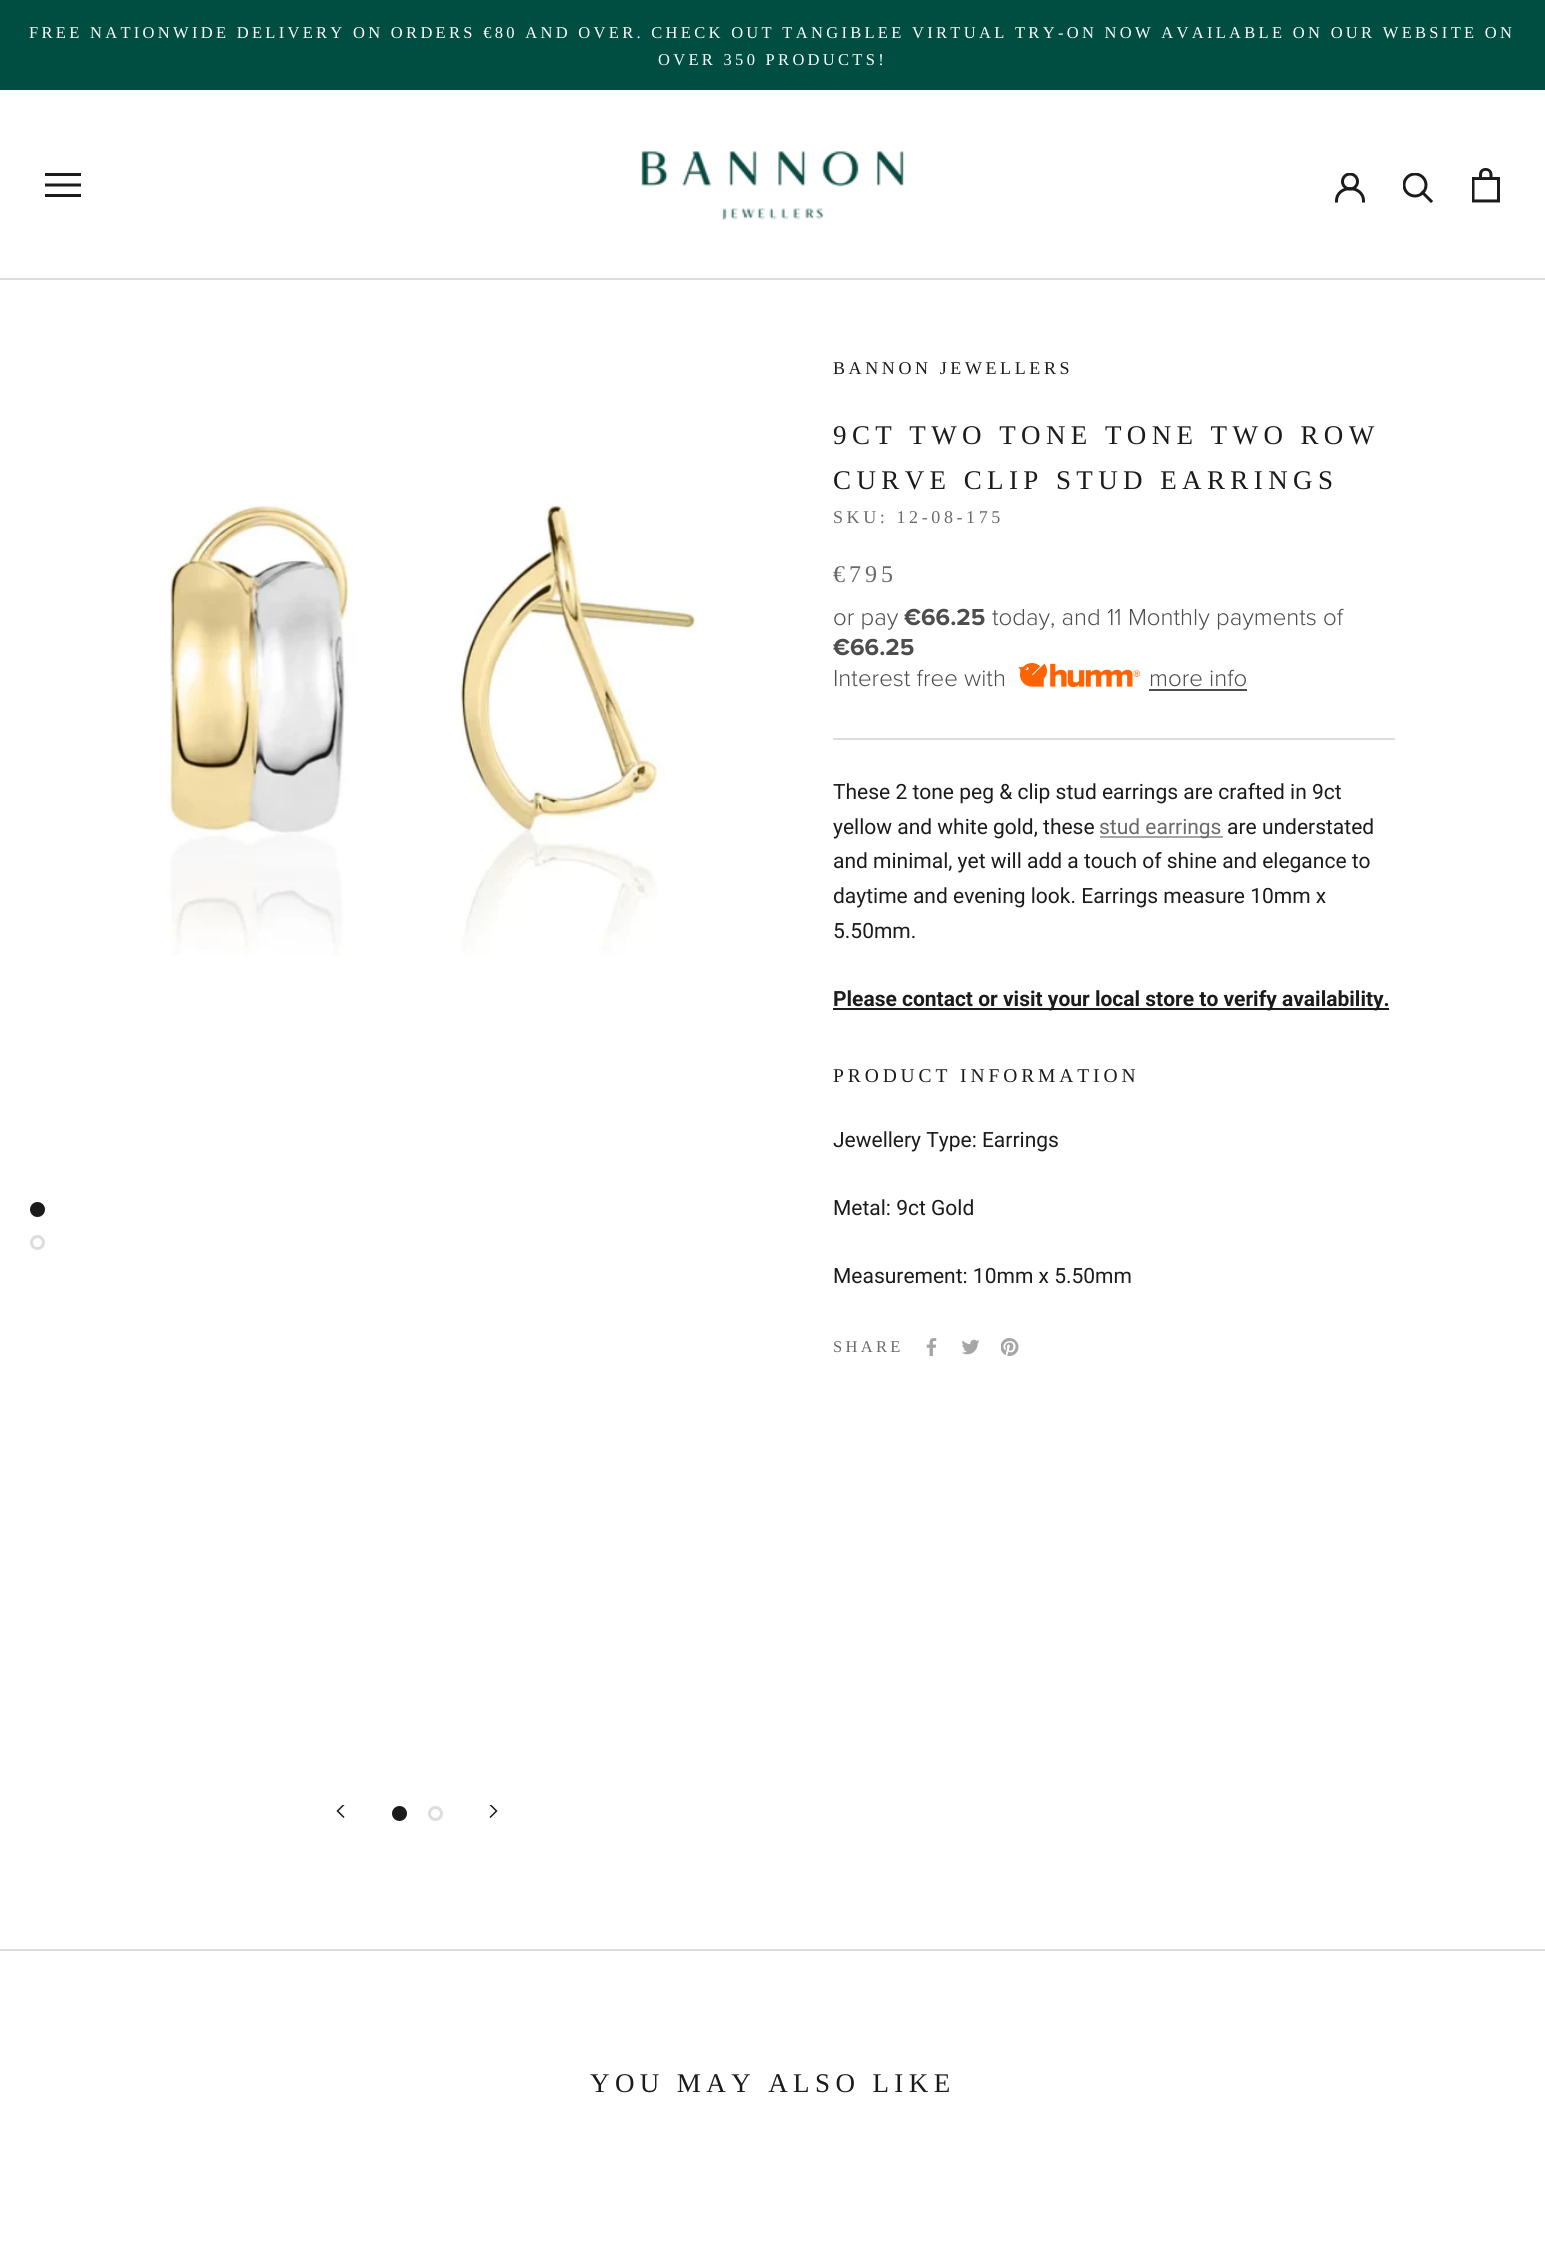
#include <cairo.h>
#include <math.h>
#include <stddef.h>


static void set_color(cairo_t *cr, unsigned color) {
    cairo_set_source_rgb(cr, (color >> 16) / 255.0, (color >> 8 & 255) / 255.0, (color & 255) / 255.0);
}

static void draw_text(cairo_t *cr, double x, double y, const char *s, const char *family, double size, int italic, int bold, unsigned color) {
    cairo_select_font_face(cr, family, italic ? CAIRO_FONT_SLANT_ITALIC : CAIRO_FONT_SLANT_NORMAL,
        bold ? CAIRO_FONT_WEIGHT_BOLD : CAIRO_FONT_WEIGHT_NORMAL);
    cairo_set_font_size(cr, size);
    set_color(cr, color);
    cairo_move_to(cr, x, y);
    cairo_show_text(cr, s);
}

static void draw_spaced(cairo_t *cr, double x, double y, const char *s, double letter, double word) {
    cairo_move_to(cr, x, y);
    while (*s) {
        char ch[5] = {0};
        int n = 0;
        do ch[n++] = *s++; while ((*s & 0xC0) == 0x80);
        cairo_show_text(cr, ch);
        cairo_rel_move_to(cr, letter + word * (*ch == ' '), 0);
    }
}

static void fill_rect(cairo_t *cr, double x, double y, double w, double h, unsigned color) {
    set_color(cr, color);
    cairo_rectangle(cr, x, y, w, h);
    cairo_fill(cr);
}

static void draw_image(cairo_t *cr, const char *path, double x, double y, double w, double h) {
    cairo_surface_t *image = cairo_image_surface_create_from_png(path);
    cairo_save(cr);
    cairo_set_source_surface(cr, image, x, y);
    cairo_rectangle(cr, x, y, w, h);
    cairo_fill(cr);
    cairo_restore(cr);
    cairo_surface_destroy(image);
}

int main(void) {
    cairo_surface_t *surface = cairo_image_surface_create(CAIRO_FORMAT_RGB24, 1545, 2260);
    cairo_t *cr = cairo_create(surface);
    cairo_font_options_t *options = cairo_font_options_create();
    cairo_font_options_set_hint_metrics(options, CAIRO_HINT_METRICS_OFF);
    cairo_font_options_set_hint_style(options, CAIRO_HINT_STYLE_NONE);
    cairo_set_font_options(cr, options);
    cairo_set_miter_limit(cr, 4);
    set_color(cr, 0xFFFFFF);
    cairo_paint(cr);
    fill_rect(cr, 0, 0, 1545, 90, 0x004E42);
    cairo_select_font_face(cr, "Liberation Serif", CAIRO_FONT_SLANT_NORMAL, CAIRO_FONT_WEIGHT_NORMAL);
    cairo_set_font_size(cr, 16.5);
    set_color(cr, 0xFFFFFF);
    draw_spaced(cr, 29, 38, "FREE NATIONWIDE DELIVERY ON ORDERS €80 AND OVER. CHECK OUT TANGIBLEE VIRTUAL TRY-ON NOW AVAILABLE ON OUR WEBSITE ON", 3.3, 0);
    draw_spaced(cr, 658, 65, "OVER 350 PRODUCTS!", 3.3, 0);
    fill_rect(cr, 0, 278, 1545, 2, 0xDDDDDD);
    set_color(cr, 0x1C1B1B);
    cairo_new_path(cr);
    cairo_move_to(cr, 45, 197);
    cairo_line_to(cr, 45, 194);
    cairo_line_to(cr, 81, 194);
    cairo_line_to(cr, 81, 197);
    cairo_close_path(cr);
    cairo_move_to(cr, 45, 183.5);
    cairo_line_to(cr, 81, 183.5);
    cairo_line_to(cr, 81, 186.5);
    cairo_line_to(cr, 45, 186.5);
    cairo_close_path(cr);
    cairo_move_to(cr, 45, 173);
    cairo_line_to(cr, 81, 173);
    cairo_line_to(cr, 81, 176);
    cairo_line_to(cr, 45, 176);
    cairo_close_path(cr);
    cairo_fill(cr);
    draw_image(cr, "assets/img1.png", 641, 151, 263, 70);
    cairo_new_path(cr);
    cairo_move_to(cr, 1336.5, 201);
    cairo_curve_to(cr, 1336.5, 184.5, 1363.5, 184.5, 1363.5, 201);
    cairo_set_line_width(cr, 3);
    cairo_set_line_cap(cr, CAIRO_LINE_CAP_SQUARE);
    cairo_stroke(cr);
    cairo_save(cr);
    cairo_rectangle(cr, 1335, 173, 30, 30);
    cairo_clip(cr);
    cairo_arc(cr, 1350, 181.5, 7.5, 0, 2 * M_PI);
    cairo_set_line_cap(cr, CAIRO_LINE_CAP_BUTT);
    cairo_stroke(cr);
    cairo_restore(cr);
    cairo_new_path(cr);
    cairo_move_to(cr, 1431, 201);
    cairo_line_to(cr, 1422.5, 192.5);
    cairo_stroke(cr);
    cairo_save(cr);
    cairo_rectangle(cr, 1403, 173, 31, 31);
    cairo_clip(cr);
    cairo_arc(cr, 1415, 185, 11, 0, 2 * M_PI);
    cairo_set_line_cap(cr, CAIRO_LINE_CAP_BUTT);
    cairo_stroke(cr);
    cairo_restore(cr);
    draw_image(cr, "assets/img2.png", 1472, 168, 28, 35);
    draw_image(cr, "assets/img3.png", 166, 502, 530, 453);
    cairo_arc(cr, 37.5, 1209.5, 6, 0, 2 * M_PI);
    cairo_fill_preserve(cr);
    cairo_set_line_cap(cr, CAIRO_LINE_CAP_BUTT);
    cairo_stroke(cr);
    cairo_arc(cr, 37.5, 1242.5, 6, 0, 2 * M_PI);
    set_color(cr, 0xDDDDDD);
    cairo_stroke(cr);
    cairo_save(cr);
    cairo_rectangle(cr, 336, 1805, 9, 13);
    cairo_clip(cr);
    cairo_new_path(cr);
    cairo_move_to(cr, 343.5, 1817);
    cairo_line_to(cr, 337.5, 1811);
    cairo_line_to(cr, 343.5, 1805);
    set_color(cr, 0x1C1B1B);
    cairo_set_line_width(cr, 1.5);
    cairo_set_line_cap(cr, CAIRO_LINE_CAP_SQUARE);
    cairo_stroke(cr);
    cairo_restore(cr);
    set_color(cr, 0x1C1B1B);
    cairo_arc(cr, 399.5, 1813.5, 6, 0, 2 * M_PI);
    cairo_fill_preserve(cr);
    cairo_stroke(cr);
    cairo_arc(cr, 435.5, 1813.5, 6, 0, 2 * M_PI);
    set_color(cr, 0xDDDDDD);
    cairo_stroke(cr);
    cairo_save(cr);
    cairo_rectangle(cr, 489, 1805, 9, 13);
    cairo_clip(cr);
    cairo_new_path(cr);
    cairo_move_to(cr, 490.5, 1817);
    cairo_line_to(cr, 496.5, 1811);
    cairo_line_to(cr, 490.5, 1805);
    set_color(cr, 0x1C1B1B);
    cairo_set_line_width(cr, 1.5);
    cairo_set_line_cap(cr, CAIRO_LINE_CAP_SQUARE);
    cairo_stroke(cr);
    cairo_restore(cr);
    cairo_set_font_size(cr, 18);
    set_color(cr, 0x1C1B1B);
    draw_spaced(cr, 833, 374, "BANNON JEWELLERS", 3.6, 0);
    cairo_set_font_size(cr, 27);
    draw_spaced(cr, 833, 444, "9CT TWO TONE TONE TWO ROW", 5.4, 0);
    draw_spaced(cr, 833, 489, "CURVE CLIP STUD EARRINGS", 5.4, 0);
    cairo_set_font_size(cr, 18);
    set_color(cr, 0x6A6A6A);
    draw_spaced(cr, 833, 523, "SKU: 12-08-175", 3.6, 0);
    cairo_set_font_size(cr, 24);
    draw_spaced(cr, 833, 582, "€795", 4, 0);
    draw_text(cr, 833, 625, "or pay", "Proxima Nova Light", 24, 0, 0, 0x4D4D4D);
    draw_text(cr, 904, 625, "€66.25", "Proxima Nova", 24, 0, 1, 0x4D4D4D);
    draw_text(cr, 992, 625, "today, and 11 Monthly payments of", "Proxima Nova Light", 24, 0, 0, 0x4D4D4D);
    draw_text(cr, 833, 655, "€66.25", "Proxima Nova", 24, 0, 1, 0x4D4D4D);
    draw_text(cr, 833, 686, "Interest free with", "Proxima Nova Light", 24, 0, 0, 0x4D4D4D);
    draw_image(cr, "assets/img4.png", 1018, 662, 122, 25);
    draw_text(cr, 1149, 686, "more info", "Proxima Nova Light", 24, 0, 0, 0x4D4D4D);
    fill_rect(cr, 1149, 689, 98, 2, 0x4D4D4D);
    fill_rect(cr, 833, 738, 562, 2, 0xDDDDDD);
    draw_text(cr, 833, 799, "These 2 tone peg & clip stud earrings are crafted in 9ct", "Roboto", 21, 0, 0, 0x1C1B1B);
    draw_text(cr, 833, 834, "yellow and white gold, these", "Roboto", 21, 0, 0, 0x1C1B1B);
    fill_rect(cr, 1100, 836, 123, 2, 0xA6A6A6);
    draw_text(cr, 1099, 834, "stud earrings", "Roboto", 21, 0, 0, 0x6A6A6A);
    draw_text(cr, 1227, 834, "are understated", "Roboto", 21, 0, 0, 0x1C1B1B);
    draw_text(cr, 833, 868, "and minimal, yet will add a touch of shine and elegance to", "Roboto", 21, 0, 0, 0x1C1B1B);
    draw_text(cr, 833, 903, "daytime and evening look. Earrings measure 10mm x", "Roboto", 21, 0, 0, 0x1C1B1B);
    draw_text(cr, 833, 938, "5.50mm.", "Roboto", 21, 0, 0, 0x1C1B1B);
    fill_rect(cr, 833, 1008, 556, 2, 0x1C1B1B);
    draw_text(cr, 833, 1006, "Please contact or visit your local store to verify availability.", "Roboto", 21, 0, 1, 0x1C1B1B);
    cairo_select_font_face(cr, "Liberation Serif", CAIRO_FONT_SLANT_NORMAL, CAIRO_FONT_WEIGHT_NORMAL);
    cairo_set_font_size(cr, 19.5);
    draw_spaced(cr, 833, 1082, "PRODUCT INFORMATION", 3.9, 0);
    draw_text(cr, 833, 1147, "Jewellery Type: Earrings", "Roboto", 21, 0, 0, 0x1C1B1B);
    draw_text(cr, 833, 1215, "Metal: 9ct Gold", "Roboto", 21, 0, 0, 0x1C1B1B);
    draw_text(cr, 833, 1283, "Measurement: 10mm x 5.50mm", "Roboto", 21, 0, 0, 0x1C1B1B);
    cairo_select_font_face(cr, "Liberation Serif", CAIRO_FONT_SLANT_NORMAL, CAIRO_FONT_WEIGHT_NORMAL);
    cairo_set_font_size(cr, 16.5);
    set_color(cr, 0x6A6A6A);
    draw_spaced(cr, 833, 1352, "SHARE", 3.3, 0);
    draw_image(cr, "assets/img5.png", 926, 1338, 11, 18);
    draw_image(cr, "assets/img6.png", 962, 1339, 18, 16);
    draw_image(cr, "assets/img7.png", 1001, 1338, 18, 18);
    fill_rect(cr, 0, 1949, 1545, 2, 0xDDDDDD);
    cairo_set_font_size(cr, 27);
    set_color(cr, 0x1C1B1B);
    draw_spaced(cr, 590, 2092, "YOU MAY ALSO LIKE", 5.4, 0);
    cairo_surface_write_to_png(surface, "output.png");
    cairo_font_options_destroy(options);
    cairo_destroy(cr);
    cairo_surface_destroy(surface);
    return 0;
}
